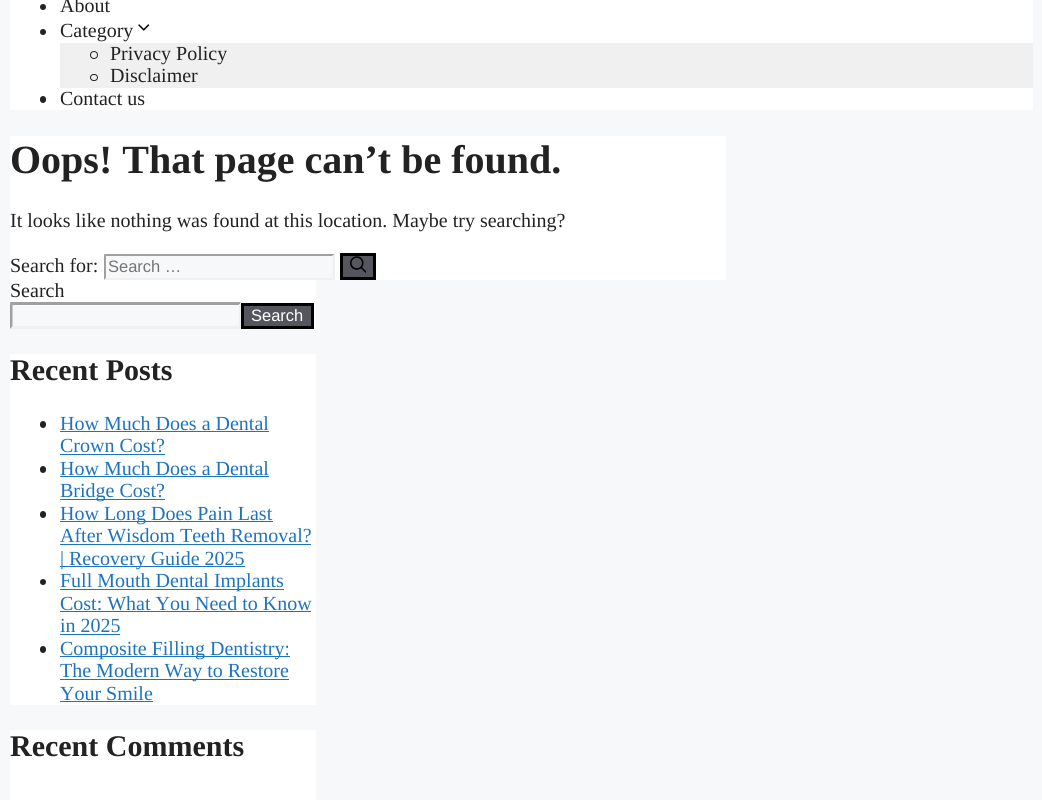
#include <cairo.h>
#include <math.h>
#include <stddef.h>


static void set_color(cairo_t *cr, unsigned color) {
    cairo_set_source_rgb(cr, (color >> 16) / 255.0, (color >> 8 & 255) / 255.0, (color & 255) / 255.0);
}

static void draw_text(cairo_t *cr, double x, double y, const char *s, const char *family, double size, int italic, int bold, unsigned color) {
    cairo_select_font_face(cr, family, italic ? CAIRO_FONT_SLANT_ITALIC : CAIRO_FONT_SLANT_NORMAL,
        bold ? CAIRO_FONT_WEIGHT_BOLD : CAIRO_FONT_WEIGHT_NORMAL);
    cairo_set_font_size(cr, size);
    set_color(cr, color);
    cairo_move_to(cr, x, y);
    cairo_show_text(cr, s);
}

static void fill_rect(cairo_t *cr, double x, double y, double w, double h, unsigned color) {
    set_color(cr, color);
    cairo_rectangle(cr, x, y, w, h);
    cairo_fill(cr);
}

static void rounded_rect(cairo_t *cr, double x, double y, double w, double h, double r) {
    cairo_new_sub_path(cr);
    cairo_arc(cr, x + w - r, y + h - r, r, 0, M_PI / 2);
    cairo_arc(cr, x + r, y + h - r, r, M_PI / 2, M_PI);
    cairo_arc(cr, x + r, y + r, r, M_PI, 1.5 * M_PI);
    cairo_arc(cr, x + w - r, y + r, r, 1.5 * M_PI, 2 * M_PI);
    cairo_close_path(cr);
}

static void draw_image(cairo_t *cr, const char *path, double x, double y, double w, double h) {
    cairo_surface_t *image = cairo_image_surface_create_from_png(path);
    cairo_save(cr);
    cairo_set_source_surface(cr, image, x, y);
    cairo_rectangle(cr, x, y, w, h);
    cairo_fill(cr);
    cairo_restore(cr);
    cairo_surface_destroy(image);
}

int main(void) {
    cairo_surface_t *surface = cairo_image_surface_create(CAIRO_FORMAT_RGB24, 1042, 800);
    cairo_t *cr = cairo_create(surface);
    cairo_font_options_t *options = cairo_font_options_create();
    cairo_font_options_set_hint_metrics(options, CAIRO_HINT_METRICS_OFF);
    cairo_font_options_set_hint_style(options, CAIRO_HINT_STYLE_NONE);
    cairo_set_font_options(cr, options);
    cairo_set_miter_limit(cr, 4);
    set_color(cr, 0xF7F8F9);
    cairo_paint(cr);
    fill_rect(cr, 10, 0, 1023, 110, 0xFFFFFF);
    set_color(cr, 0x222222);
    cairo_arc(cr, 43, 7, 3, 0, 2 * M_PI);
    cairo_fill(cr);
    draw_text(cr, 60, 12, "About", "Liberation Serif", 20, 0, 0, 0x222222);
    draw_text(cr, 60, 37, "Category", "Liberation Serif", 20, 0, 0, 0x222222);
    draw_image(cr, "assets/img1.png", 138, 24, 12, 7);
    cairo_arc(cr, 43, 32, 3, 0, 2 * M_PI);
    cairo_fill(cr);
    fill_rect(cr, 60, 43, 973, 45, 0xF0F0F0);
    cairo_arc(cr, 94, 55, 3.5, 0, 2 * M_PI);
    set_color(cr, 0x222222);
    cairo_set_line_width(cr, 1);
    cairo_stroke(cr);
    draw_text(cr, 110, 60, "Privacy Policy", "Liberation Serif", 20, 0, 0, 0x222222);
    rounded_rect(cr, 90.5, 74.5, 7, 6, 3);
    cairo_stroke(cr);
    draw_text(cr, 110, 82, "Disclaimer", "Liberation Serif", 20, 0, 0, 0x222222);
    rounded_rect(cr, 40, 96, 6, 7, 3);
    cairo_fill(cr);
    draw_text(cr, 60, 105, "Contact us", "Liberation Serif", 20, 0, 0, 0x222222);
    fill_rect(cr, 10, 136, 716, 144, 0xFFFFFF);
    draw_text(cr, 10, 173, "Oops! That page can’t be found.", "Liberation Serif", 40, 0, 1, 0x222222);
    draw_text(cr, 10, 227, "It looks like nothing was found at this location. Maybe try searching?", "Liberation Serif", 20, 0, 0, 0x222222);
    draw_text(cr, 10, 272, "Search for:", "Liberation Serif", 20, 0, 0, 0x222222);
    fill_rect(cr, 104, 254, 231, 26, 0xF7F8F9);
    set_color(cr, 0xA0A0A0);
    cairo_new_path(cr);
    cairo_move_to(cr, 104, 254);
    cairo_line_to(cr, 335, 254);
    cairo_line_to(cr, 332, 256);
    cairo_line_to(cr, 106, 256);
    cairo_close_path(cr);
    cairo_fill(cr);
    set_color(cr, 0xF0F0F0);
    cairo_new_path(cr);
    cairo_move_to(cr, 335, 254);
    cairo_line_to(cr, 335, 280);
    cairo_line_to(cr, 332.5, 277.5);
    cairo_line_to(cr, 332.5, 256);
    cairo_close_path(cr);
    cairo_fill(cr);
    cairo_new_path(cr);
    cairo_move_to(cr, 335, 280);
    cairo_line_to(cr, 104, 280);
    cairo_line_to(cr, 106, 278);
    cairo_line_to(cr, 332, 278);
    cairo_close_path(cr);
    cairo_fill(cr);
    set_color(cr, 0xA0A0A0);
    cairo_new_path(cr);
    cairo_move_to(cr, 104, 280);
    cairo_line_to(cr, 104, 254);
    cairo_line_to(cr, 106, 256);
    cairo_line_to(cr, 106, 277.5);
    cairo_close_path(cr);
    cairo_fill(cr);
    draw_text(cr, 108, 272, "Search …", "Liberation Sans", 16.5, 0, 0, 0x757575);
    set_color(cr, 0x55555E);
    cairo_rectangle(cr, 341.5, 254.5, 33, 24);
    cairo_fill_preserve(cr);
    set_color(cr, 0x000000);
    cairo_set_line_width(cr, 3);
    cairo_stroke(cr);
    draw_image(cr, "assets/img2.png", 350, 256, 16, 17);
    fill_rect(cr, 10, 280, 306, 49, 0xFFFFFF);
    draw_text(cr, 10, 297, "Search", "Liberation Serif", 20, 0, 0, 0x222222);
    fill_rect(cr, 10, 303, 231, 26, 0xF7F8F9);
    set_color(cr, 0xA0A0A0);
    cairo_new_path(cr);
    cairo_move_to(cr, 10, 302);
    cairo_line_to(cr, 241, 302);
    cairo_line_to(cr, 239, 305);
    cairo_line_to(cr, 12, 305);
    cairo_close_path(cr);
    cairo_fill(cr);
    set_color(cr, 0xF0F0F0);
    cairo_new_path(cr);
    cairo_move_to(cr, 241, 302.5);
    cairo_line_to(cr, 241, 329);
    cairo_line_to(cr, 239, 326);
    cairo_line_to(cr, 239, 305);
    cairo_close_path(cr);
    cairo_fill(cr);
    cairo_new_path(cr);
    cairo_move_to(cr, 241, 329);
    cairo_line_to(cr, 10, 329);
    cairo_line_to(cr, 12, 326);
    cairo_line_to(cr, 239, 326);
    cairo_close_path(cr);
    cairo_fill(cr);
    set_color(cr, 0xA0A0A0);
    cairo_new_path(cr);
    cairo_move_to(cr, 10, 329);
    cairo_line_to(cr, 10, 302.5);
    cairo_line_to(cr, 12.5, 305);
    cairo_line_to(cr, 12.5, 326);
    cairo_close_path(cr);
    cairo_fill(cr);
    set_color(cr, 0x55555E);
    cairo_rectangle(cr, 242.5, 304.5, 70, 23);
    cairo_fill_preserve(cr);
    set_color(cr, 0x000000);
    cairo_stroke(cr);
    draw_text(cr, 251, 321, "Search", "Liberation Sans", 16.5, 0, 0, 0xFFFFFF);
    fill_rect(cr, 10, 354, 306, 351, 0xFFFFFF);
    draw_text(cr, 10, 380, "Recent Posts", "Liberation Serif", 30, 0, 1, 0x222222);
    rounded_rect(cr, 40, 421, 6, 7, 3);
    cairo_fill(cr);
    draw_text(cr, 60, 430, "How Much Does a Dental", "Liberation Serif", 20, 0, 0, 0x1E73BE);
    fill_rect(cr, 60, 431, 209, 1, 0x1E73BE);
    draw_text(cr, 60, 452, "Crown Cost?", "Liberation Serif", 20, 0, 0, 0x1E73BE);
    fill_rect(cr, 60, 454, 105, 1, 0x1E73BE);
    set_color(cr, 0x222222);
    rounded_rect(cr, 40, 466, 6, 7, 3);
    cairo_fill(cr);
    draw_text(cr, 60, 475, "How Much Does a Dental", "Liberation Serif", 20, 0, 0, 0x1E73BE);
    fill_rect(cr, 60, 476, 209, 1, 0x1E73BE);
    fill_rect(cr, 60, 499, 105, 1, 0x1E73BE);
    draw_text(cr, 60, 497, "Bridge Cost?", "Liberation Serif", 20, 0, 0, 0x1E73BE);
    set_color(cr, 0x222222);
    rounded_rect(cr, 40, 511, 6, 7, 3);
    cairo_fill(cr);
    fill_rect(cr, 60, 521, 213, 1, 0x1E73BE);
    draw_text(cr, 60, 520, "How Long Does Pain Last", "Liberation Serif", 20, 0, 0, 0x1E73BE);
    draw_text(cr, 60, 542, "After Wisdom Teeth Removal?", "Liberation Serif", 20, 0, 0, 0x1E73BE);
    fill_rect(cr, 60, 544, 251, 1, 0x1E73BE);
    fill_rect(cr, 60, 566, 185, 1, 0x1E73BE);
    draw_text(cr, 60, 565, "| Recovery Guide 2025", "Liberation Serif", 20, 0, 0, 0x1E73BE);
    set_color(cr, 0x222222);
    cairo_new_path(cr);
    cairo_arc(cr, 43, 582, 3, 0, 2 * M_PI);
    cairo_fill(cr);
    fill_rect(cr, 60, 589, 224, 1, 0x1E73BE);
    draw_text(cr, 60, 587, "Full Mouth Dental Implants", "Liberation Serif", 20, 0, 0, 0x1E73BE);
    draw_text(cr, 60, 610, "Cost: What You Need to Know", "Liberation Serif", 20, 0, 0, 0x1E73BE);
    fill_rect(cr, 60, 611, 251, 1, 0x1E73BE);
    draw_text(cr, 60, 632, "in 2025", "Liberation Serif", 20, 0, 0, 0x1E73BE);
    fill_rect(cr, 60, 634, 60, 1, 0x1E73BE);
    set_color(cr, 0x222222);
    rounded_rect(cr, 40, 646, 6, 7, 3);
    cairo_fill(cr);
    fill_rect(cr, 60, 656, 230, 1, 0x1E73BE);
    draw_text(cr, 60, 655, "Composite Filling Dentistry:", "Liberation Serif", 20, 0, 0, 0x1E73BE);
    fill_rect(cr, 60, 679, 229, 1, 0x1E73BE);
    draw_text(cr, 60, 677, "The Modern Way to Restore", "Liberation Serif", 20, 0, 0, 0x1E73BE);
    draw_text(cr, 60, 700, "Your Smile", "Liberation Serif", 20, 0, 0, 0x1E73BE);
    fill_rect(cr, 60, 701, 93, 1, 0x1E73BE);
    fill_rect(cr, 10, 730, 306, 70, 0xFFFFFF);
    draw_text(cr, 10, 756, "Recent Comments", "Liberation Serif", 30, 0, 1, 0x222222);
    cairo_surface_write_to_png(surface, "output.png");
    cairo_font_options_destroy(options);
    cairo_destroy(cr);
    cairo_surface_destroy(surface);
    return 0;
}
